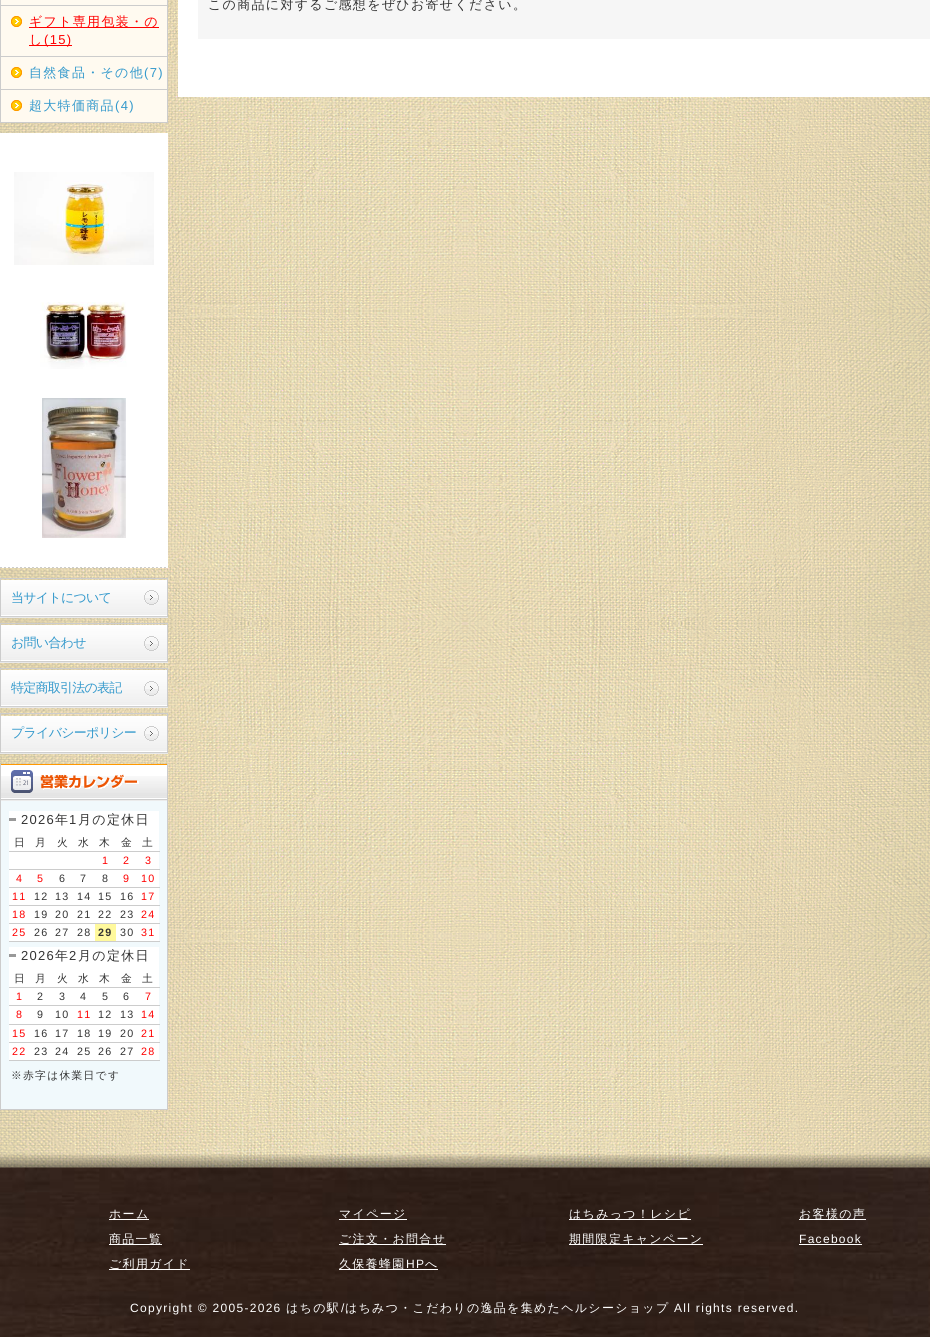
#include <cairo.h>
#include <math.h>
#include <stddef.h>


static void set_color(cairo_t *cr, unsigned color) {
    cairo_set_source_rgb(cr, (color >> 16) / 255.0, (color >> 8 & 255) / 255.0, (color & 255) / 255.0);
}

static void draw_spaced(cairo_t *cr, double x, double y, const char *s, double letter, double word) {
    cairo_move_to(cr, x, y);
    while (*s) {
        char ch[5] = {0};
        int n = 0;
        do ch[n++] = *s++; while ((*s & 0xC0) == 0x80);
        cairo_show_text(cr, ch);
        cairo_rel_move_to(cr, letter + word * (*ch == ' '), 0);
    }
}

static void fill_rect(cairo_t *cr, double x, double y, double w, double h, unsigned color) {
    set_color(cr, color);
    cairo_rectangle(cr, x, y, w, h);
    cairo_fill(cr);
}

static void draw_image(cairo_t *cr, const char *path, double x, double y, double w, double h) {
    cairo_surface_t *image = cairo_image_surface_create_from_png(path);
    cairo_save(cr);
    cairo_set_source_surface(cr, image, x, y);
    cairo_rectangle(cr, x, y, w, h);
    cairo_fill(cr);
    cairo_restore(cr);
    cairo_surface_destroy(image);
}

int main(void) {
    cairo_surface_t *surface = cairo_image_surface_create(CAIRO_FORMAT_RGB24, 930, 1337);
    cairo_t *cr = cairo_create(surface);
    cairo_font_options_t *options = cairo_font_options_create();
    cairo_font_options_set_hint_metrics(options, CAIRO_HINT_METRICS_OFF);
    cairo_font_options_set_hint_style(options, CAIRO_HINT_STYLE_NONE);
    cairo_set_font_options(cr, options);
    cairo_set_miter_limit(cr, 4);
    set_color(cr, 0xFFFFFF);
    cairo_paint(cr);
    draw_image(cr, "assets/img1.png", 0, 0, 930, 1168);
    fill_rect(cr, 178, 0, 752, 97, 0xFFFFFF);
    fill_rect(cr, 198, 0, 732, 39, 0xF6F6F6);
    cairo_select_font_face(cr, "WenQuanYi Zen Hei Medium", CAIRO_FONT_SLANT_NORMAL, CAIRO_FONT_WEIGHT_NORMAL);
    cairo_set_font_size(cr, 13);
    set_color(cr, 0x333333);
    draw_spaced(cr, 208, 9, "この商品に対するご感想をぜひお寄せください。", 1.3, 0);
    fill_rect(cr, 1, 0, 166, 122, 0xFFFAF0);
    fill_rect(cr, 167, 0, 1, 123, 0xCCCCCC);
    fill_rect(cr, 0, 122, 168, 1, 0xCCCCCC);
    fill_rect(cr, 0, 0, 1, 123, 0xCCCCCC);
    fill_rect(cr, 1, 5, 166, 1, 0xCCCCCC);
    fill_rect(cr, 1, 56, 166, 1, 0xCCCCCC);
    draw_image(cr, "assets/img2.png", 11, 16, 11, 11);
    fill_rect(cr, 29, 27, 130, 1, 0xFF0000);
    draw_spaced(cr, 29, 26, "ギフト専用包装・の", 1.3, 0);
    fill_rect(cr, 29, 45, 43, 1, 0xFF0000);
    draw_spaced(cr, 29, 44, "し", 1.3, 0);
    cairo_select_font_face(cr, "Liberation Sans", CAIRO_FONT_SLANT_NORMAL, CAIRO_FONT_WEIGHT_NORMAL);
    draw_spaced(cr, 44, 44, "(15)", 1.3, 0);
    fill_rect(cr, 1, 89, 166, 1, 0xCCCCCC);
    draw_image(cr, "assets/img2.png", 11, 67, 11, 11);
    cairo_select_font_face(cr, "WenQuanYi Zen Hei Medium", CAIRO_FONT_SLANT_NORMAL, CAIRO_FONT_WEIGHT_NORMAL);
    set_color(cr, 0x3399CC);
    draw_spaced(cr, 29, 77, "自然食品・その他", 1.3, 0);
    cairo_select_font_face(cr, "Liberation Sans", CAIRO_FONT_SLANT_NORMAL, CAIRO_FONT_WEIGHT_NORMAL);
    draw_spaced(cr, 144, 77, "(7)", 1.3, 0);
    draw_image(cr, "assets/img2.png", 11, 100, 11, 11);
    cairo_select_font_face(cr, "WenQuanYi Zen Hei Medium", CAIRO_FONT_SLANT_NORMAL, CAIRO_FONT_WEIGHT_NORMAL);
    draw_spaced(cr, 29, 110, "超大特価商品", 1.3, 0);
    cairo_select_font_face(cr, "Liberation Sans", CAIRO_FONT_SLANT_NORMAL, CAIRO_FONT_WEIGHT_NORMAL);
    draw_spaced(cr, 115, 110, "(4)", 1.3, 0);
    fill_rect(cr, 0, 133, 168, 435, 0xFFFFFF);
    draw_image(cr, "assets/img3.png", 0, 567, 166, 1);
    draw_image(cr, "assets/img4.png", 14, 172, 140, 93);
    draw_image(cr, "assets/img5.png", 40, 302, 87, 67);
    draw_image(cr, "assets/img6.png", 42, 398, 84, 140);
    draw_image(cr, "assets/img7.png", 0, 580, 168, 38);
    draw_image(cr, "assets/img8.png", 144, 590, 15, 15);
    fill_rect(cr, 0, 578, 168, 1, 0xCCCCCC);
    fill_rect(cr, 167, 578, 1, 39, 0xCCCCCC);
    fill_rect(cr, 0, 578, 1, 39, 0xCCCCCC);
    cairo_select_font_face(cr, "WenQuanYi Zen Hei Medium", CAIRO_FONT_SLANT_NORMAL, CAIRO_FONT_WEIGHT_NORMAL);
    set_color(cr, 0x3399CC);
    draw_spaced(cr, 11, 602, "当サイトについて", -0.75, 0);
    draw_image(cr, "assets/img7.png", 0, 625, 168, 38);
    draw_image(cr, "assets/img9.png", 144, 636, 15, 15);
    fill_rect(cr, 0, 623, 168, 1, 0xCCCCCC);
    fill_rect(cr, 167, 623, 1, 39, 0xCCCCCC);
    fill_rect(cr, 0, 623, 1, 39, 0xCCCCCC);
    set_color(cr, 0x3399CC);
    draw_spaced(cr, 11, 647, "お問い合わせ", -0.75, 0);
    draw_image(cr, "assets/img7.png", 0, 670, 168, 38);
    draw_image(cr, "assets/img9.png", 144, 681, 15, 15);
    fill_rect(cr, 0, 668, 168, 1, 0xCCCCCC);
    fill_rect(cr, 167, 668, 1, 39, 0xCCCCCC);
    fill_rect(cr, 0, 668, 1, 39, 0xCCCCCC);
    set_color(cr, 0x3399CC);
    draw_spaced(cr, 11, 692, "特定商取引法の表記", -0.75, 0);
    draw_image(cr, "assets/img7.png", 0, 716, 168, 38);
    draw_image(cr, "assets/img8.png", 144, 726, 15, 15);
    fill_rect(cr, 0, 713, 168, 1, 0xCCCCCC);
    fill_rect(cr, 167, 713, 1, 40, 0xCCCCCC);
    fill_rect(cr, 0, 713, 1, 40, 0xCCCCCC);
    set_color(cr, 0x3399CC);
    draw_spaced(cr, 11, 737, "プライバシーポリシー", -0.75, 0);
    fill_rect(cr, 1, 765, 166, 11, 0xFFFFFF);
    draw_image(cr, "assets/img10.png", 1, 776, 166, 25);
    fill_rect(cr, 0, 764, 168, 1, 0xFF9900);
    fill_rect(cr, 167, 764, 1, 346, 0xCCCCCC);
    fill_rect(cr, 0, 764, 1, 37, 0xCCCCCC);
    draw_image(cr, "assets/img11.png", 11, 770, 128, 23);
    fill_rect(cr, 1, 801, 166, 308, 0xF1F9FC);
    fill_rect(cr, 0, 1109, 168, 1, 0xCCCCCC);
    fill_rect(cr, 0, 801, 1, 309, 0xCCCCCC);
    fill_rect(cr, 9, 811, 150, 130, 0xFFFFFF);
    fill_rect(cr, 9, 818, 7, 3, 0x999999);
    cairo_select_font_face(cr, "Liberation Sans", CAIRO_FONT_SLANT_NORMAL, CAIRO_FONT_WEIGHT_NORMAL);
    set_color(cr, 0x333333);
    draw_spaced(cr, 21, 824, "2026", 1.3, 0);
    cairo_select_font_face(cr, "WenQuanYi Zen Hei Medium", CAIRO_FONT_SLANT_NORMAL, CAIRO_FONT_WEIGHT_NORMAL);
    draw_spaced(cr, 55, 824, "年", 1.3, 0);
    cairo_select_font_face(cr, "Liberation Sans", CAIRO_FONT_SLANT_NORMAL, CAIRO_FONT_WEIGHT_NORMAL);
    draw_spaced(cr, 69, 824, "1", 1.3, 0);
    cairo_select_font_face(cr, "WenQuanYi Zen Hei Medium", CAIRO_FONT_SLANT_NORMAL, CAIRO_FONT_WEIGHT_NORMAL);
    draw_spaced(cr, 78, 824, "月の定休日", 1.3, 0);
    cairo_set_font_size(cr, 10.75);
    draw_spaced(cr, 14, 846, "日", 1.3, 0);
    draw_spaced(cr, 35, 846, "月", 1.3, 0);
    draw_spaced(cr, 57, 846, "火", 1.3, 0);
    draw_spaced(cr, 78, 846, "水", 1.3, 0);
    draw_spaced(cr, 99, 846, "木", 1.3, 0);
    draw_spaced(cr, 121, 846, "金", 1.3, 0);
    draw_spaced(cr, 142, 846, "土", 1.3, 0);
    cairo_select_font_face(cr, "Liberation Sans", CAIRO_FONT_SLANT_NORMAL, CAIRO_FONT_WEIGHT_NORMAL);
    set_color(cr, 0xFF0000);
    draw_spaced(cr, 102, 864, "1", 1.3, 0);
    draw_spaced(cr, 123, 864, "2", 1.3, 0);
    fill_rect(cr, 9, 851, 151, 1, 0xCCCCCC);
    set_color(cr, 0xFF0000);
    draw_spaced(cr, 145, 864, "3", 1.3, 0);
    draw_spaced(cr, 16, 882, "4", 1.3, 0);
    draw_spaced(cr, 37, 882, "5", 1.3, 0);
    set_color(cr, 0x333333);
    draw_spaced(cr, 59, 882, "6", 1.3, 0);
    draw_spaced(cr, 80, 882, "7", 1.3, 0);
    draw_spaced(cr, 102, 882, "8", 1.3, 0);
    set_color(cr, 0xFF0000);
    draw_spaced(cr, 123, 882, "9", 1.3, 0);
    fill_rect(cr, 9, 869, 151, 1, 0xCCCCCC);
    set_color(cr, 0xFF0000);
    draw_spaced(cr, 141, 882, "10", 1.3, 0);
    draw_spaced(cr, 12, 900, "11", 1.3, 0);
    set_color(cr, 0x333333);
    draw_spaced(cr, 34, 900, "12", 1.3, 0);
    draw_spaced(cr, 55, 900, "13", 1.3, 0);
    draw_spaced(cr, 77, 900, "14", 1.3, 0);
    draw_spaced(cr, 98, 900, "15", 1.3, 0);
    draw_spaced(cr, 120, 900, "16", 1.3, 0);
    fill_rect(cr, 9, 887, 151, 1, 0xCCCCCC);
    set_color(cr, 0xFF0000);
    draw_spaced(cr, 141, 900, "17", 1.3, 0);
    draw_spaced(cr, 12, 918, "18", 1.3, 0);
    set_color(cr, 0x333333);
    draw_spaced(cr, 34, 918, "19", 1.3, 0);
    draw_spaced(cr, 55, 918, "20", 1.3, 0);
    draw_spaced(cr, 77, 918, "21", 1.3, 0);
    draw_spaced(cr, 98, 918, "22", 1.3, 0);
    draw_spaced(cr, 120, 918, "23", 1.3, 0);
    fill_rect(cr, 9, 905, 151, 1, 0xCCCCCC);
    set_color(cr, 0xFF0000);
    draw_spaced(cr, 141, 918, "24", 1.3, 0);
    draw_spaced(cr, 12, 936, "25", 1.3, 0);
    set_color(cr, 0x333333);
    draw_spaced(cr, 34, 936, "26", 1.3, 0);
    draw_spaced(cr, 55, 936, "27", 1.3, 0);
    draw_spaced(cr, 77, 936, "28", 1.3, 0);
    fill_rect(cr, 95, 924, 21, 17, 0xFFF99D);
    cairo_select_font_face(cr, "Liberation Sans", CAIRO_FONT_SLANT_NORMAL, CAIRO_FONT_WEIGHT_BOLD);
    set_color(cr, 0x333333);
    draw_spaced(cr, 98, 936, "29", 1.3, 0);
    cairo_select_font_face(cr, "Liberation Sans", CAIRO_FONT_SLANT_NORMAL, CAIRO_FONT_WEIGHT_NORMAL);
    draw_spaced(cr, 120, 936, "30", 1.3, 0);
    fill_rect(cr, 9, 923, 151, 1, 0xCCCCCC);
    fill_rect(cr, 9, 941, 151, 1, 0xCCCCCC);
    set_color(cr, 0xFF0000);
    draw_spaced(cr, 141, 936, "31", 1.3, 0);
    fill_rect(cr, 9, 947, 150, 113, 0xFFFFFF);
    fill_rect(cr, 9, 954, 7, 3, 0x999999);
    cairo_set_font_size(cr, 13);
    set_color(cr, 0x333333);
    draw_spaced(cr, 21, 960, "2026", 1.3, 0);
    cairo_select_font_face(cr, "WenQuanYi Zen Hei Medium", CAIRO_FONT_SLANT_NORMAL, CAIRO_FONT_WEIGHT_NORMAL);
    draw_spaced(cr, 55, 960, "年", 1.3, 0);
    cairo_select_font_face(cr, "Liberation Sans", CAIRO_FONT_SLANT_NORMAL, CAIRO_FONT_WEIGHT_NORMAL);
    draw_spaced(cr, 69, 960, "2", 1.3, 0);
    cairo_select_font_face(cr, "WenQuanYi Zen Hei Medium", CAIRO_FONT_SLANT_NORMAL, CAIRO_FONT_WEIGHT_NORMAL);
    draw_spaced(cr, 78, 960, "月の定休日", 1.3, 0);
    cairo_set_font_size(cr, 10.75);
    draw_spaced(cr, 14, 982, "日", 1.3, 0);
    draw_spaced(cr, 35, 982, "月", 1.3, 0);
    draw_spaced(cr, 57, 982, "火", 1.3, 0);
    draw_spaced(cr, 78, 982, "水", 1.3, 0);
    draw_spaced(cr, 99, 982, "木", 1.3, 0);
    draw_spaced(cr, 121, 982, "金", 1.3, 0);
    draw_spaced(cr, 142, 982, "土", 1.3, 0);
    cairo_select_font_face(cr, "Liberation Sans", CAIRO_FONT_SLANT_NORMAL, CAIRO_FONT_WEIGHT_NORMAL);
    set_color(cr, 0xFF0000);
    draw_spaced(cr, 16, 1000, "1", 1.3, 0);
    set_color(cr, 0x333333);
    draw_spaced(cr, 37, 1000, "2", 1.3, 0);
    draw_spaced(cr, 59, 1000, "3", 1.3, 0);
    draw_spaced(cr, 80, 1000, "4", 1.3, 0);
    draw_spaced(cr, 102, 1000, "5", 1.3, 0);
    draw_spaced(cr, 123, 1000, "6", 1.3, 0);
    fill_rect(cr, 9, 987, 151, 1, 0xCCCCCC);
    set_color(cr, 0xFF0000);
    draw_spaced(cr, 145, 1000, "7", 1.3, 0);
    draw_spaced(cr, 16, 1018, "8", 1.3, 0);
    set_color(cr, 0x333333);
    draw_spaced(cr, 37, 1018, "9", 1.3, 0);
    draw_spaced(cr, 55, 1018, "10", 1.3, 0);
    set_color(cr, 0xFF0000);
    draw_spaced(cr, 77, 1018, "11", 1.3, 0);
    set_color(cr, 0x333333);
    draw_spaced(cr, 98, 1018, "12", 1.3, 0);
    draw_spaced(cr, 120, 1018, "13", 1.3, 0);
    fill_rect(cr, 9, 1005, 151, 1, 0xCCCCCC);
    set_color(cr, 0xFF0000);
    draw_spaced(cr, 141, 1018, "14", 1.3, 0);
    draw_spaced(cr, 12, 1037, "15", 1.3, 0);
    set_color(cr, 0x333333);
    draw_spaced(cr, 34, 1037, "16", 1.3, 0);
    draw_spaced(cr, 55, 1037, "17", 1.3, 0);
    draw_spaced(cr, 77, 1037, "18", 1.3, 0);
    draw_spaced(cr, 98, 1037, "19", 1.3, 0);
    draw_spaced(cr, 120, 1037, "20", 1.3, 0);
    fill_rect(cr, 9, 1024, 151, 1, 0xCCCCCC);
    set_color(cr, 0xFF0000);
    draw_spaced(cr, 141, 1037, "21", 1.3, 0);
    draw_spaced(cr, 12, 1055, "22", 1.3, 0);
    set_color(cr, 0x333333);
    draw_spaced(cr, 34, 1055, "23", 1.3, 0);
    draw_spaced(cr, 55, 1055, "24", 1.3, 0);
    draw_spaced(cr, 77, 1055, "25", 1.3, 0);
    draw_spaced(cr, 98, 1055, "26", 1.3, 0);
    draw_spaced(cr, 120, 1055, "27", 1.3, 0);
    fill_rect(cr, 9, 1042, 151, 1, 0xCCCCCC);
    fill_rect(cr, 9, 1060, 151, 1, 0xCCCCCC);
    set_color(cr, 0xFF0000);
    draw_spaced(cr, 141, 1055, "28", 1.3, 0);
    cairo_select_font_face(cr, "WenQuanYi Zen Hei Medium", CAIRO_FONT_SLANT_NORMAL, CAIRO_FONT_WEIGHT_NORMAL);
    set_color(cr, 0x333333);
    draw_spaced(cr, 11, 1079, "※赤字は休業日です", 1.3, 0);
    draw_image(cr, "assets/img12.png", 0, 1154, 930, 183);
    fill_rect(cr, 109, 1219, 40, 1, 0xFFFFFF);
    cairo_set_font_size(cr, 12);
    draw_spaced(cr, 109, 1218, "ホーム", 1.3, 0);
    fill_rect(cr, 339, 1219, 68, 1, 0xFFFFFF);
    draw_spaced(cr, 339, 1218, "マイページ", 1.3, 0);
    fill_rect(cr, 569, 1219, 122, 1, 0xFFFFFF);
    draw_spaced(cr, 569, 1218, "はちみっつ！レシピ", 1.3, 0);
    fill_rect(cr, 799, 1219, 67, 1, 0xFFFFFF);
    draw_spaced(cr, 799, 1218, "お客様の声", 1.3, 0);
    fill_rect(cr, 109, 1244, 53, 1, 0xFFFFFF);
    draw_spaced(cr, 109, 1243, "商品一覧", 1.3, 0);
    fill_rect(cr, 339, 1244, 107, 1, 0xFFFFFF);
    draw_spaced(cr, 339, 1243, "ご注文・お問合せ", 1.3, 0);
    fill_rect(cr, 569, 1244, 134, 1, 0xFFFFFF);
    draw_spaced(cr, 569, 1243, "期間限定キャンペーン", 1.3, 0);
    cairo_select_font_face(cr, "Liberation Sans", CAIRO_FONT_SLANT_NORMAL, CAIRO_FONT_WEIGHT_NORMAL);
    draw_spaced(cr, 799, 1243, "Facebook", 1.3, 0);
    fill_rect(cr, 799, 1244, 63, 1, 0xFFFFFF);
    fill_rect(cr, 109, 1269, 81, 1, 0xFFFFFF);
    cairo_select_font_face(cr, "WenQuanYi Zen Hei Medium", CAIRO_FONT_SLANT_NORMAL, CAIRO_FONT_WEIGHT_NORMAL);
    draw_spaced(cr, 109, 1268, "ご利用ガイド", 1.3, 0);
    fill_rect(cr, 339, 1269, 99, 1, 0xFFFFFF);
    draw_spaced(cr, 339, 1268, "久保養蜂園", 1.3, 0);
    cairo_select_font_face(cr, "Liberation Sans", CAIRO_FONT_SLANT_NORMAL, CAIRO_FONT_WEIGHT_NORMAL);
    draw_spaced(cr, 406, 1268, "HP", 1.3, 0);
    cairo_select_font_face(cr, "WenQuanYi Zen Hei Medium", CAIRO_FONT_SLANT_NORMAL, CAIRO_FONT_WEIGHT_NORMAL);
    draw_spaced(cr, 425, 1268, "へ", 1.3, 0);
    cairo_select_font_face(cr, "Liberation Sans", CAIRO_FONT_SLANT_NORMAL, CAIRO_FONT_WEIGHT_NORMAL);
    draw_spaced(cr, 130, 1312, "Copyright © 2005-2026", 1.3, 0);
    cairo_select_font_face(cr, "WenQuanYi Zen Hei Medium", CAIRO_FONT_SLANT_NORMAL, CAIRO_FONT_WEIGHT_NORMAL);
    draw_spaced(cr, 286, 1312, "はちの駅 はちみつ・こだわりの逸品を集めたヘルシーショップ", 1.3, 0);
    cairo_select_font_face(cr, "Liberation Sans", CAIRO_FONT_SLANT_NORMAL, CAIRO_FONT_WEIGHT_NORMAL);
    draw_spaced(cr, 341, 1312, "/", 1.3, 0);
    draw_spaced(cr, 674, 1312, "All rights reserved.", 1.3, 0);
    cairo_surface_write_to_png(surface, "output.png");
    cairo_font_options_destroy(options);
    cairo_destroy(cr);
    cairo_surface_destroy(surface);
    return 0;
}
